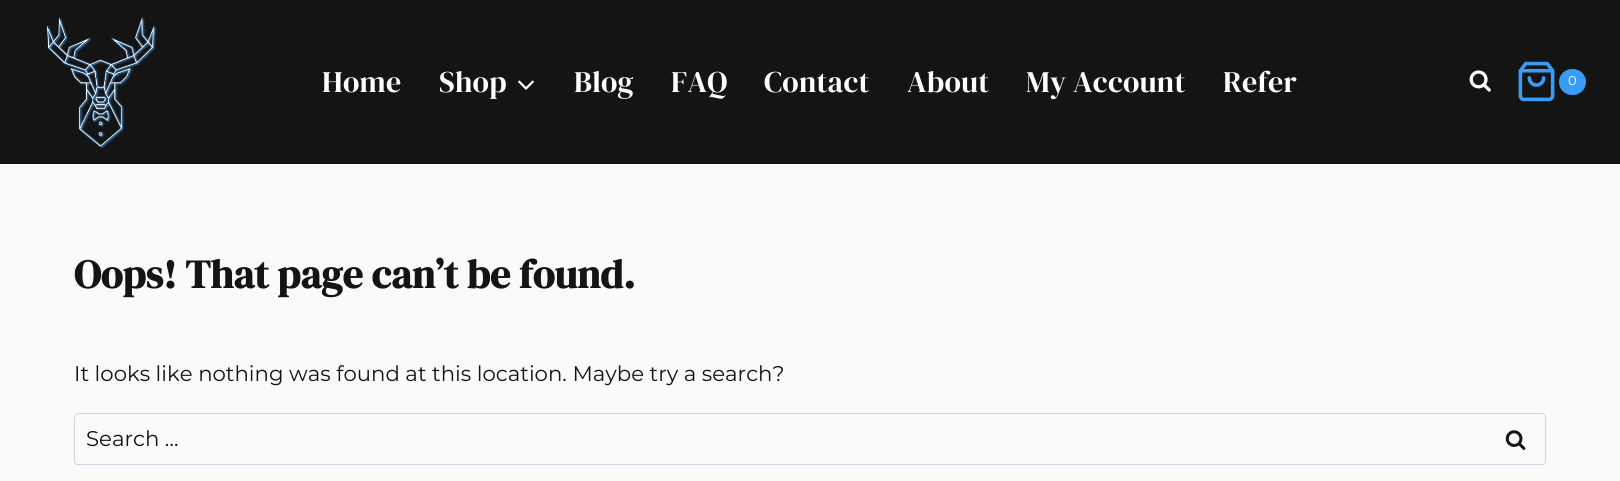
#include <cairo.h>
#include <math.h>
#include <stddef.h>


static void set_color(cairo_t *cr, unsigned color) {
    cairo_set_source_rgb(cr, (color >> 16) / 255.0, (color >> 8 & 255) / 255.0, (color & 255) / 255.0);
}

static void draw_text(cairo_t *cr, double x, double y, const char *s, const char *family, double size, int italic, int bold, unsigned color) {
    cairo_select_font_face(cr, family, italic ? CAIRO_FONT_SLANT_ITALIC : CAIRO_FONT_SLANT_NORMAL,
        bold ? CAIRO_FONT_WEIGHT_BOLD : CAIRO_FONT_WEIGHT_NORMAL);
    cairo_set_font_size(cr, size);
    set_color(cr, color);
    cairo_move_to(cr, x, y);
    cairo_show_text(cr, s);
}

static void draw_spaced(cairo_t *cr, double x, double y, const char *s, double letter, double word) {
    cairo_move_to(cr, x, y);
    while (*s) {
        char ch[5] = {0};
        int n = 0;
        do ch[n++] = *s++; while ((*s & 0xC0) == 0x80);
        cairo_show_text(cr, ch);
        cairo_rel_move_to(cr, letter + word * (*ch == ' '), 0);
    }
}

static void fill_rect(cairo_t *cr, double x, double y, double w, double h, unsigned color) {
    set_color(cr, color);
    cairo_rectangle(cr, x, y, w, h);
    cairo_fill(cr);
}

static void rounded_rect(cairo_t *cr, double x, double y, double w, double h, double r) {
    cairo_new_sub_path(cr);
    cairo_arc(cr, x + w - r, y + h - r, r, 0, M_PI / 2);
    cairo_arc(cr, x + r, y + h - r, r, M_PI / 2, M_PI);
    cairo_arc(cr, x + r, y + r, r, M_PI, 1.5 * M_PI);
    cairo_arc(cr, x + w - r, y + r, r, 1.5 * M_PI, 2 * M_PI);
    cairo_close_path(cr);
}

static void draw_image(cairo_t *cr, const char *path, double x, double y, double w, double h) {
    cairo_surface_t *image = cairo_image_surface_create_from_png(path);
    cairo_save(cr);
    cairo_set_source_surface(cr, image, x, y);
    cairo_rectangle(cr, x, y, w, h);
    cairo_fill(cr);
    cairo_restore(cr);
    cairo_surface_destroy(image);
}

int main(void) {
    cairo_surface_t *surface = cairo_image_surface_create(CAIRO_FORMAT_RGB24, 1620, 481);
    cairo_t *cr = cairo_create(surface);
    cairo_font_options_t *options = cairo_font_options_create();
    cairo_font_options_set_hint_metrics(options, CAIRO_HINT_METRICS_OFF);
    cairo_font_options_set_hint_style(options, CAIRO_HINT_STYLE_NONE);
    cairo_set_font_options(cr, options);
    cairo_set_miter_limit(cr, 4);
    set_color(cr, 0xFAFAFA);
    cairo_paint(cr);
    fill_rect(cr, 0, 0, 1620, 164, 0x141414);
    draw_image(cr, "assets/img1.png", 46, 17, 111, 132);
    cairo_select_font_face(cr, "DM Serif Display", CAIRO_FONT_SLANT_NORMAL, CAIRO_FONT_WEIGHT_NORMAL);
    cairo_set_font_size(cr, 30);
    set_color(cr, 0xFDFDFD);
    draw_spaced(cr, 322, 92, "Home", 0.25, 0);
    draw_spaced(cr, 439, 92, "Shop", 0.25, 0);
    draw_image(cr, "assets/img2.png", 518, 80, 16, 10);
    draw_spaced(cr, 574, 92, "Blog", 0.25, 0);
    draw_spaced(cr, 671, 92, "FAQ", 0.25, 0);
    draw_spaced(cr, 764, 92, "Contact", 0.25, 0);
    draw_spaced(cr, 907, 92, "About", 0.25, 0);
    draw_spaced(cr, 1026, 92, "My Account", 0.25, 0);
    draw_spaced(cr, 1223, 92, "Refer", 0.25, 0);
    draw_image(cr, "assets/img3.png", 1469, 70, 22, 22);
    draw_image(cr, "assets/img4.png", 1518, 61, 37, 41);
    set_color(cr, 0x379DF7);
    rounded_rect(cr, 1559, 69, 27, 26, 13);
    cairo_fill(cr);
    draw_text(cr, 1568, 85, "0", "Montserrat", 13, 0, 0, 0xFDFDFD);
    draw_text(cr, 74, 288, "Oops! That page can’t be found.", "DM Serif Display", 40, 0, 1, 0x141414);
    draw_text(cr, 74, 381, "It looks like nothing was found at this location. Maybe try a search?", "Montserrat", 21.25, 0, 0, 0x141414);
    rounded_rect(cr, 74.5, 413.5, 1471, 51, 3.5);
    set_color(cr, 0xCBD5E0);
    cairo_set_line_width(cr, 1);
    cairo_stroke(cr);
    draw_text(cr, 86, 446, "Search …", "Montserrat", 21.25, 0, 0, 0x141414);
    draw_image(cr, "assets/img5.png", 1505, 430, 21, 20);
    cairo_surface_write_to_png(surface, "output.png");
    cairo_font_options_destroy(options);
    cairo_destroy(cr);
    cairo_surface_destroy(surface);
    return 0;
}
